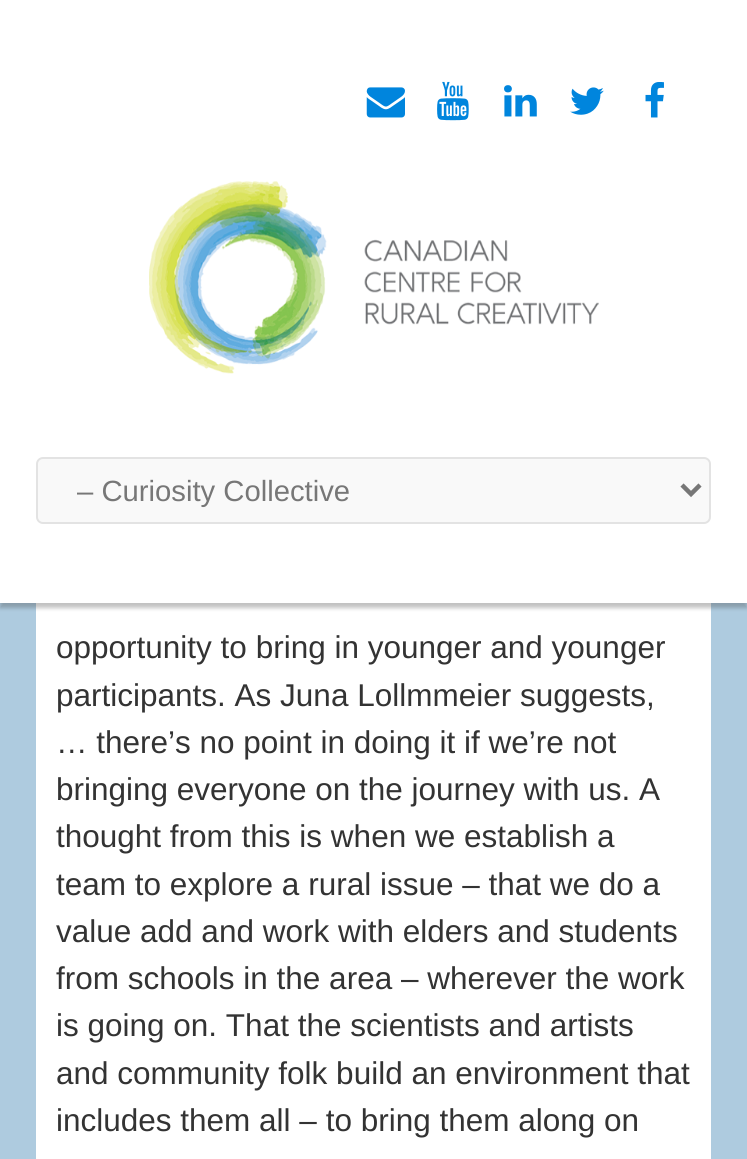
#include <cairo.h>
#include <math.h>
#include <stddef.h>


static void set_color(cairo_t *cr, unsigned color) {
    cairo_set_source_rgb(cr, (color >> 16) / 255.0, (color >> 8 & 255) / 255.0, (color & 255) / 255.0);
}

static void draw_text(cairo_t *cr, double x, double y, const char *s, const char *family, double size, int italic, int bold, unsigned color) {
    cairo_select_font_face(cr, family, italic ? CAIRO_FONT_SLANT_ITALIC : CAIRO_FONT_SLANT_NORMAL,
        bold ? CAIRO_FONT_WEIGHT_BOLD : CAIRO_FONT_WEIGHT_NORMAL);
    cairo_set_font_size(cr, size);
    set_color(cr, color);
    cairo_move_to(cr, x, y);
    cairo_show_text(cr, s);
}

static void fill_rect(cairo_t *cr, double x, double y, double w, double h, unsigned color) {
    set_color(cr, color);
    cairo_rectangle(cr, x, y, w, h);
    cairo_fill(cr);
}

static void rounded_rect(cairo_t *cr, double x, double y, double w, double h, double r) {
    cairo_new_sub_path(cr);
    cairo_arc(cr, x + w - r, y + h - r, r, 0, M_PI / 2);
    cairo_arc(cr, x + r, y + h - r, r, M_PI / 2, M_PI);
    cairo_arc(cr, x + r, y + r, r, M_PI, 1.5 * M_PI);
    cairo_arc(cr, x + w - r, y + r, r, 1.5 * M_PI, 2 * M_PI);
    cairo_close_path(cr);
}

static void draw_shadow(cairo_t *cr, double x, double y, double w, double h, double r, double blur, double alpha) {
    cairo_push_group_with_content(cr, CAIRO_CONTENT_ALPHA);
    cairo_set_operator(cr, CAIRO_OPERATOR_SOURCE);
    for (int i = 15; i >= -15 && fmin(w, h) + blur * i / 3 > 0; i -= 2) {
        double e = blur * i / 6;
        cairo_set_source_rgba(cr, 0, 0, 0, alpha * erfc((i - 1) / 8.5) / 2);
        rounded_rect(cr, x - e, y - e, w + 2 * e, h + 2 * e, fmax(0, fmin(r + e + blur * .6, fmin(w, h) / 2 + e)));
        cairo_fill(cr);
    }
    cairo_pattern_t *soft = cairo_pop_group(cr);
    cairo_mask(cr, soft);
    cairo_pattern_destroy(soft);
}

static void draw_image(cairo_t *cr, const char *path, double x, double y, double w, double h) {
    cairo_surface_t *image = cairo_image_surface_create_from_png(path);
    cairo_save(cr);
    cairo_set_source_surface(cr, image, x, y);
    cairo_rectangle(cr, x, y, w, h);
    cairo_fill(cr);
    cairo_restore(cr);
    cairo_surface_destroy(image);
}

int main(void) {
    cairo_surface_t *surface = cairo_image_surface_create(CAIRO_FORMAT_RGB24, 747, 1159);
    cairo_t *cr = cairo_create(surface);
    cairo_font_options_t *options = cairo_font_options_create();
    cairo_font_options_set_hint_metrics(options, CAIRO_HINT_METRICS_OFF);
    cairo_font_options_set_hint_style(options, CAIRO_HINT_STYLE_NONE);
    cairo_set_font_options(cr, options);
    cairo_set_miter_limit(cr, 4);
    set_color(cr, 0xAECBDF);
    cairo_paint(cr);
    fill_rect(cr, 36, 603, 675, 556, 0xFFFFFF);
    set_color(cr, 0x323232);
    draw_shadow(cr, 0, 5, 747, 603, 0, 2, 0.3);
    fill_rect(cr, 0, 0, 747, 603, 0xFFFFFF);
    draw_image(cr, "assets/img1.png", 366, 87, 39, 31);
    draw_image(cr, "assets/img2.png", 437, 81, 32, 40);
    draw_image(cr, "assets/img3.png", 504, 85, 33, 32);
    draw_image(cr, "assets/img4.png", 570, 87, 34, 28);
    draw_image(cr, "assets/img5.png", 645, 82, 19, 36);
    draw_image(cr, "assets/img6.png", 149, 181, 450, 193);
    set_color(cr, 0xF9F9F9);
    rounded_rect(cr, 37, 458, 673, 65, 6);
    cairo_fill_preserve(cr);
    set_color(cr, 0xE3E3E3);
    cairo_stroke(cr);
    cairo_new_path(cr);
    cairo_move_to(cr, 682, 485);
    cairo_line_to(cr, 691, 494);
    cairo_line_to(cr, 700, 485);
    set_color(cr, 0x777777);
    cairo_set_line_width(cr, 4.5);
    cairo_stroke(cr);
    draw_text(cr, 77, 501, "– Curiosity Collective", "Liberation Sans", 29.25, 0, 0, 0x777777);
    draw_text(cr, 56, 658, "opportunity to bring in younger and younger", "Liberation Sans", 31.5, 0, 0, 0x333333);
    draw_text(cr, 56, 706, "participants. As Juna Lollmmeier suggests,", "Liberation Sans", 31.5, 0, 0, 0x333333);
    draw_text(cr, 56, 753, "… there’s no point in doing it if we’re not", "Liberation Sans", 31.5, 0, 0, 0x333333);
    draw_text(cr, 56, 800, "bringing everyone on the journey with us. A", "Liberation Sans", 31.5, 0, 0, 0x333333);
    draw_text(cr, 56, 847, "thought from this is when we establish a", "Liberation Sans", 31.5, 0, 0, 0x333333);
    draw_text(cr, 56, 895, "team to explore a rural issue – that we do a", "Liberation Sans", 31.5, 0, 0, 0x333333);
    draw_text(cr, 56, 942, "value add and work with elders and students", "Liberation Sans", 31.5, 0, 0, 0x333333);
    draw_text(cr, 56, 989, "from schools in the area – wherever the work", "Liberation Sans", 31.5, 0, 0, 0x333333);
    draw_text(cr, 56, 1036, "is going on. That the scientists and artists", "Liberation Sans", 31.5, 0, 0, 0x333333);
    draw_text(cr, 56, 1084, "and community folk build an environment that", "Liberation Sans", 31.5, 0, 0, 0x333333);
    draw_text(cr, 56, 1131, "includes them all – to bring them along on", "Liberation Sans", 31.5, 0, 0, 0x333333);
    cairo_surface_write_to_png(surface, "output.png");
    cairo_font_options_destroy(options);
    cairo_destroy(cr);
    cairo_surface_destroy(surface);
    return 0;
}
